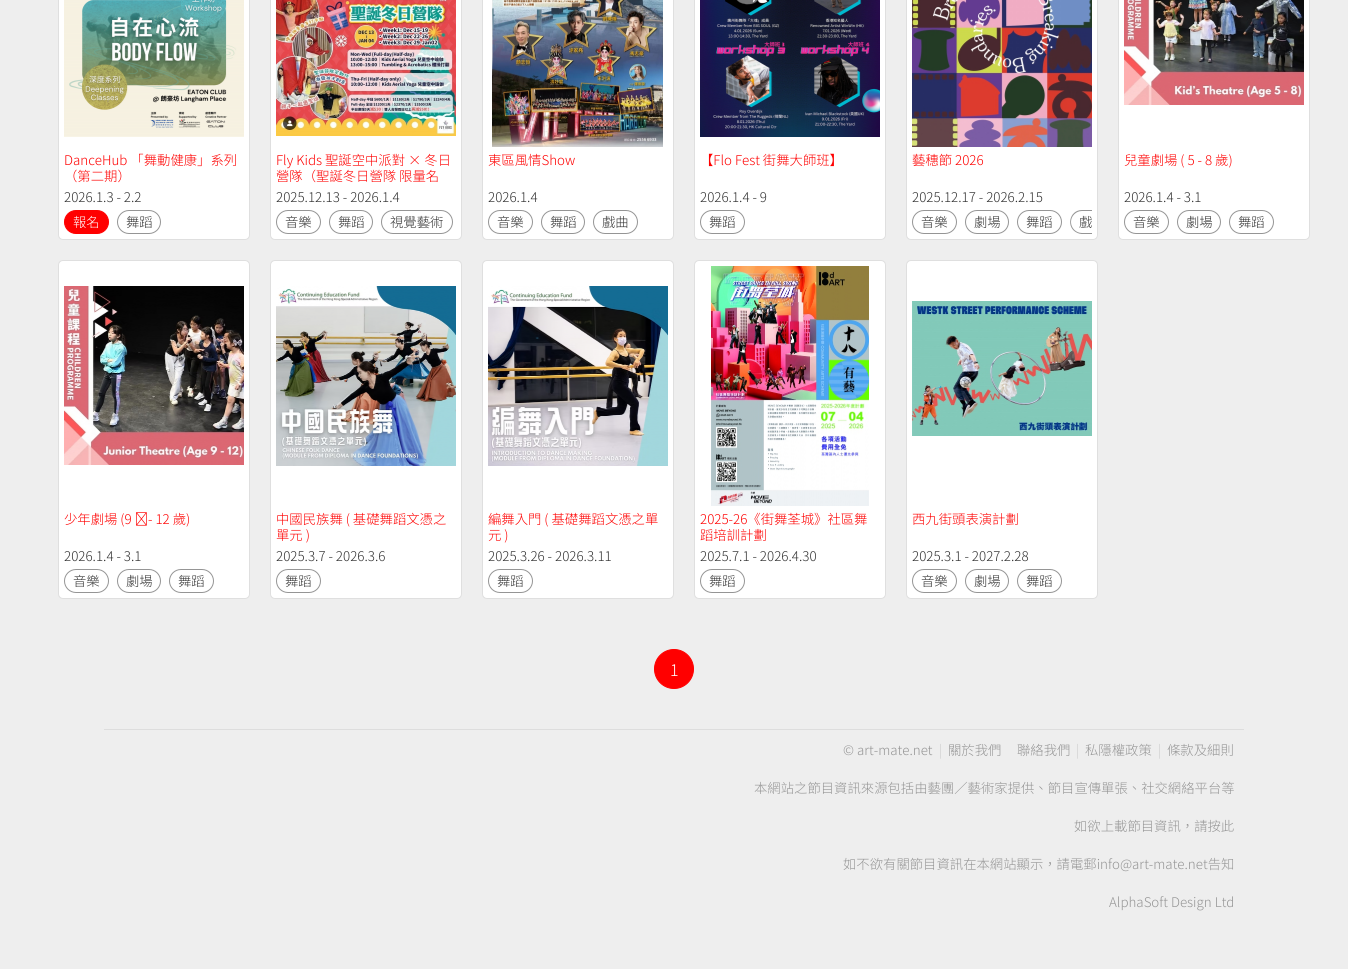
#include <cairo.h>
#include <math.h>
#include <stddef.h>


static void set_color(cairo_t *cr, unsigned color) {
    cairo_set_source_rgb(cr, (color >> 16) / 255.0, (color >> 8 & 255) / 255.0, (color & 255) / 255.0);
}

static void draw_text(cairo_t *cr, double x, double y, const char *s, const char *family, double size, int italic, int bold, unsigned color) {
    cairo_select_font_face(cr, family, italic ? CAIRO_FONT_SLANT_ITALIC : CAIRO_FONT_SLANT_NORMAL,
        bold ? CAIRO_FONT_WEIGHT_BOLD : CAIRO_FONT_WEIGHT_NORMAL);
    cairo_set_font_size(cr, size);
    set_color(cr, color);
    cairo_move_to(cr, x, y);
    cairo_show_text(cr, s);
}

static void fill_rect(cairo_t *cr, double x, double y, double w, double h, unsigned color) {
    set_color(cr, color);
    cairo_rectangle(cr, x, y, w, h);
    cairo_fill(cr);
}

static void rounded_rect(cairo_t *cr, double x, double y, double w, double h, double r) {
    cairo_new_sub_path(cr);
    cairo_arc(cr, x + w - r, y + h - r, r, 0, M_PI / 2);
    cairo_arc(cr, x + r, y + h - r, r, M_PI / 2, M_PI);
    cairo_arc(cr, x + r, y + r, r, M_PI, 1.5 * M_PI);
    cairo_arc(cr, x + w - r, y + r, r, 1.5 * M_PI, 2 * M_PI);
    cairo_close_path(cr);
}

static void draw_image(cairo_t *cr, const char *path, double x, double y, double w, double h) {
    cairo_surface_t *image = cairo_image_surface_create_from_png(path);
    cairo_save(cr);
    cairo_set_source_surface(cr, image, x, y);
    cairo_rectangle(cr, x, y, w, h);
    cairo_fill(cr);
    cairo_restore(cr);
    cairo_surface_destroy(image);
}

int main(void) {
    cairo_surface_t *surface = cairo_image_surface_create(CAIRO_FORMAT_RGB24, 1348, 969);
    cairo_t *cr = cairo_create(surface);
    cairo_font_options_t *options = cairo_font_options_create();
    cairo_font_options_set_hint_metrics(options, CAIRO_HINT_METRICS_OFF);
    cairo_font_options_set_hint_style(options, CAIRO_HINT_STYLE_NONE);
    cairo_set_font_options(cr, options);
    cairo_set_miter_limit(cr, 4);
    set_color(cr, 0xEEEEEE);
    cairo_paint(cr);
    set_color(cr, 0xFFFFFF);
    rounded_rect(cr, 58.5, -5.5, 191, 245, 4.5);
    cairo_fill_preserve(cr);
    set_color(cr, 0xDFDFDF);
    cairo_set_line_width(cr, 1);
    cairo_stroke(cr);
    draw_image(cr, "assets/img1.png", 64, 0, 180, 137);
    draw_text(cr, 64, 165, "DanceHub 「舞動健康」系列", "Noto Sans HK Thin", 13.35, 0, 0, 0xFF0000);
    draw_text(cr, 64, 181, "（第二期）", "Noto Sans HK Thin", 13.35, 0, 0, 0xFF0000);
    draw_text(cr, 64, 202, "2026.1.3 - 2.2", "Noto Sans HK Thin", 13.35, 0, 0, 0x333333);
    set_color(cr, 0xFF0000);
    rounded_rect(cr, 64.5, 210.5, 44, 23, 11.5);
    cairo_fill_preserve(cr);
    cairo_stroke(cr);
    draw_text(cr, 73, 227, "報名", "Noto Sans HK Thin", 13.35, 0, 0, 0xFFFFFF);
    rounded_rect(cr, 117.5, 210.5, 43, 23, 11.5);
    set_color(cr, 0x959595);
    cairo_stroke(cr);
    draw_text(cr, 126, 227, "舞蹈", "Noto Sans HK Thin", 13.35, 0, 0, 0x333333);
    set_color(cr, 0xFFFFFF);
    rounded_rect(cr, 270.5, -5.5, 191, 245, 4.5);
    cairo_fill_preserve(cr);
    set_color(cr, 0xDFDFDF);
    cairo_stroke(cr);
    draw_image(cr, "assets/img2.png", 276, 0, 180, 136);
    draw_text(cr, 276, 165, "Fly Kids 聖誕空中派對 × 冬日", "Noto Sans HK Thin", 13.35, 0, 0, 0xFF0000);
    draw_text(cr, 276, 181, "營隊（聖誕冬日營隊 限量名", "Noto Sans HK Thin", 13.35, 0, 0, 0xFF0000);
    draw_text(cr, 276, 202, "2025.12.13 - 2026.1.4", "Noto Sans HK Thin", 13.35, 0, 0, 0x333333);
    rounded_rect(cr, 276.5, 210.5, 44, 23, 11.5);
    set_color(cr, 0x959595);
    cairo_stroke(cr);
    draw_text(cr, 285, 227, "音樂", "Noto Sans HK Thin", 13.35, 0, 0, 0x333333);
    rounded_rect(cr, 329.5, 210.5, 43, 23, 11.5);
    set_color(cr, 0x959595);
    cairo_stroke(cr);
    draw_text(cr, 338, 227, "舞蹈", "Noto Sans HK Thin", 13.35, 0, 0, 0x333333);
    rounded_rect(cr, 381.5, 210.5, 71, 23, 11.5);
    set_color(cr, 0x959595);
    cairo_stroke(cr);
    draw_text(cr, 390, 227, "視覺藝術", "Noto Sans HK Thin", 13.35, 0, 0, 0x333333);
    set_color(cr, 0xFFFFFF);
    rounded_rect(cr, 482.5, -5.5, 191, 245, 4.5);
    cairo_fill_preserve(cr);
    set_color(cr, 0xDFDFDF);
    cairo_stroke(cr);
    draw_image(cr, "assets/img3.png", 492, 0, 171, 147);
    draw_text(cr, 488, 165, "東區風情Show", "Noto Sans HK Thin", 13.35, 0, 0, 0xFF0000);
    draw_text(cr, 488, 202, "2026.1.4", "Noto Sans HK Thin", 13.35, 0, 0, 0x333333);
    rounded_rect(cr, 488.5, 210.5, 44, 23, 11.5);
    set_color(cr, 0x959595);
    cairo_stroke(cr);
    draw_text(cr, 497, 227, "音樂", "Noto Sans HK Thin", 13.35, 0, 0, 0x333333);
    rounded_rect(cr, 541.5, 210.5, 43, 23, 11.5);
    set_color(cr, 0x959595);
    cairo_stroke(cr);
    draw_text(cr, 550, 227, "舞蹈", "Noto Sans HK Thin", 13.35, 0, 0, 0x333333);
    rounded_rect(cr, 593.5, 210.5, 44, 23, 11.5);
    set_color(cr, 0x959595);
    cairo_stroke(cr);
    draw_text(cr, 602, 227, "戲曲", "Noto Sans HK Thin", 13.35, 0, 0, 0x333333);
    set_color(cr, 0xFFFFFF);
    rounded_rect(cr, 694.5, -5.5, 191, 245, 4.5);
    cairo_fill_preserve(cr);
    set_color(cr, 0xDFDFDF);
    cairo_stroke(cr);
    draw_image(cr, "assets/img4.png", 700, 0, 180, 137);
    draw_text(cr, 700, 165, "【Flo Fest 街舞大師班】", "Noto Sans HK Thin", 13.35, 0, 0, 0xFF0000);
    draw_text(cr, 700, 202, "2026.1.4 - 9", "Noto Sans HK Thin", 13.35, 0, 0, 0x333333);
    rounded_rect(cr, 700.5, 210.5, 44, 23, 11.5);
    set_color(cr, 0x959595);
    cairo_stroke(cr);
    draw_text(cr, 709, 227, "舞蹈", "Noto Sans HK Thin", 13.35, 0, 0, 0x333333);
    set_color(cr, 0xFFFFFF);
    rounded_rect(cr, 906.5, -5.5, 191, 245, 4.5);
    cairo_fill_preserve(cr);
    set_color(cr, 0xDFDFDF);
    cairo_stroke(cr);
    draw_image(cr, "assets/img5.png", 912, 0, 180, 147);
    draw_text(cr, 912, 165, "藝穗節 2026", "Noto Sans HK Thin", 13.35, 0, 0, 0xFF0000);
    draw_text(cr, 912, 202, "2025.12.17 - 2026.2.15", "Noto Sans HK Thin", 13.35, 0, 0, 0x333333);
    rounded_rect(cr, 912.5, 210.5, 44, 23, 11.5);
    set_color(cr, 0x959595);
    cairo_stroke(cr);
    draw_text(cr, 921, 227, "音樂", "Noto Sans HK Thin", 13.35, 0, 0, 0x333333);
    rounded_rect(cr, 965.5, 210.5, 43, 23, 11.5);
    set_color(cr, 0x959595);
    cairo_stroke(cr);
    draw_text(cr, 974, 227, "劇場", "Noto Sans HK Thin", 13.35, 0, 0, 0x333333);
    rounded_rect(cr, 1017.5, 210.5, 44, 23, 11.5);
    set_color(cr, 0x959595);
    cairo_stroke(cr);
    draw_text(cr, 1026, 227, "舞蹈", "Noto Sans HK Thin", 13.35, 0, 0, 0x333333);
    cairo_save(cr);
    cairo_rectangle(cr, 912, 210, 180, 24);
    cairo_clip(cr);
    set_color(cr, 0x959595);
    cairo_new_path(cr);
    cairo_move_to(cr, 1082, 210);
    cairo_curve_to(cr, 1069, 210, 1065.5, 228, 1077.5, 233);
    cairo_curve_to(cr, 1081.5, 235, 1092, 234, 1097, 234);
    cairo_line_to(cr, 1097, 233);
    cairo_line_to(cr, 1082, 233);
    cairo_curve_to(cr, 1076, 233, 1071, 228, 1071, 222);
    cairo_curve_to(cr, 1071, 216, 1076, 211, 1082, 211);
    cairo_line_to(cr, 1097, 211);
    cairo_line_to(cr, 1097, 210);
    cairo_close_path(cr);
    cairo_fill(cr);
    cairo_restore(cr);
    draw_text(cr, 1079, 227, "戲", "Noto Sans HK Thin", 13.35, 0, 0, 0x333333);
    set_color(cr, 0xFFFFFF);
    rounded_rect(cr, 1118.5, -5.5, 191, 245, 4.5);
    cairo_fill_preserve(cr);
    set_color(cr, 0xDFDFDF);
    cairo_stroke(cr);
    draw_image(cr, "assets/img6.png", 1124, 0, 180, 105);
    draw_text(cr, 1124, 165, "兒童劇場 ( 5 - 8 歲)", "Noto Sans HK Thin", 13.35, 0, 0, 0xFF0000);
    draw_text(cr, 1124, 202, "2026.1.4 - 3.1", "Noto Sans HK Thin", 13.35, 0, 0, 0x333333);
    rounded_rect(cr, 1124.5, 210.5, 44, 23, 11.5);
    set_color(cr, 0x959595);
    cairo_stroke(cr);
    draw_text(cr, 1133, 227, "音樂", "Noto Sans HK Thin", 13.35, 0, 0, 0x333333);
    rounded_rect(cr, 1177.5, 210.5, 43, 23, 11.5);
    set_color(cr, 0x959595);
    cairo_stroke(cr);
    draw_text(cr, 1186, 227, "劇場", "Noto Sans HK Thin", 13.35, 0, 0, 0x333333);
    rounded_rect(cr, 1229.5, 210.5, 44, 23, 11.5);
    set_color(cr, 0x959595);
    cairo_stroke(cr);
    draw_text(cr, 1238, 227, "舞蹈", "Noto Sans HK Thin", 13.35, 0, 0, 0x333333);
    set_color(cr, 0xFFFFFF);
    rounded_rect(cr, 58.5, 260.5, 191, 338, 4.5);
    cairo_fill_preserve(cr);
    set_color(cr, 0xDFDFDF);
    cairo_stroke(cr);
    draw_image(cr, "assets/img7.png", 64, 286, 180, 179);
    draw_text(cr, 64, 524, "少年劇場 (9  - 12 歲)", "Noto Sans HK Thin", 13.35, 0, 0, 0xFF0000);
    draw_text(cr, 64, 561, "2026.1.4 - 3.1", "Noto Sans HK Thin", 13.35, 0, 0, 0x333333);
    rounded_rect(cr, 64.5, 569.5, 44, 23, 11.5);
    set_color(cr, 0x959595);
    cairo_stroke(cr);
    draw_text(cr, 73, 586, "音樂", "Noto Sans HK Thin", 13.35, 0, 0, 0x333333);
    rounded_rect(cr, 117.5, 569.5, 43, 23, 11.5);
    set_color(cr, 0x959595);
    cairo_stroke(cr);
    draw_text(cr, 126, 586, "劇場", "Noto Sans HK Thin", 13.35, 0, 0, 0x333333);
    rounded_rect(cr, 169.5, 569.5, 44, 23, 11.5);
    set_color(cr, 0x959595);
    cairo_stroke(cr);
    draw_text(cr, 178, 586, "舞蹈", "Noto Sans HK Thin", 13.35, 0, 0, 0x333333);
    set_color(cr, 0xFFFFFF);
    rounded_rect(cr, 270.5, 260.5, 191, 338, 4.5);
    cairo_fill_preserve(cr);
    set_color(cr, 0xDFDFDF);
    cairo_stroke(cr);
    draw_image(cr, "assets/img8.png", 276, 286, 180, 180);
    draw_text(cr, 276, 524, "中國民族舞 ( 基礎舞蹈文憑之", "Noto Sans HK Thin", 13.35, 0, 0, 0xFF0000);
    draw_text(cr, 276, 540, "單元 )", "Noto Sans HK Thin", 13.35, 0, 0, 0xFF0000);
    draw_text(cr, 276, 561, "2025.3.7 - 2026.3.6", "Noto Sans HK Thin", 13.35, 0, 0, 0x333333);
    rounded_rect(cr, 276.5, 569.5, 44, 23, 11.5);
    set_color(cr, 0x959595);
    cairo_stroke(cr);
    draw_text(cr, 285, 586, "舞蹈", "Noto Sans HK Thin", 13.35, 0, 0, 0x333333);
    set_color(cr, 0xFFFFFF);
    rounded_rect(cr, 482.5, 260.5, 191, 338, 4.5);
    cairo_fill_preserve(cr);
    set_color(cr, 0xDFDFDF);
    cairo_stroke(cr);
    draw_image(cr, "assets/img9.png", 488, 286, 180, 180);
    draw_text(cr, 488, 524, "編舞入門 ( 基礎舞蹈文憑之單", "Noto Sans HK Thin", 13.35, 0, 0, 0xFF0000);
    draw_text(cr, 488, 540, "元 )", "Noto Sans HK Thin", 13.35, 0, 0, 0xFF0000);
    draw_text(cr, 488, 561, "2025.3.26 - 2026.3.11", "Noto Sans HK Thin", 13.35, 0, 0, 0x333333);
    rounded_rect(cr, 488.5, 569.5, 44, 23, 11.5);
    set_color(cr, 0x959595);
    cairo_stroke(cr);
    draw_text(cr, 497, 586, "舞蹈", "Noto Sans HK Thin", 13.35, 0, 0, 0x333333);
    set_color(cr, 0xFFFFFF);
    rounded_rect(cr, 694.5, 260.5, 191, 338, 4.5);
    cairo_fill_preserve(cr);
    set_color(cr, 0xDFDFDF);
    cairo_stroke(cr);
    draw_image(cr, "assets/img10.png", 711, 266, 158, 240);
    draw_text(cr, 700, 524, "2025-26《街舞荃城》社區舞", "Noto Sans HK Thin", 13.35, 0, 0, 0xFF0000);
    draw_text(cr, 700, 540, "蹈培訓計劃", "Noto Sans HK Thin", 13.35, 0, 0, 0xFF0000);
    draw_text(cr, 700, 561, "2025.7.1 - 2026.4.30", "Noto Sans HK Thin", 13.35, 0, 0, 0x333333);
    rounded_rect(cr, 700.5, 569.5, 44, 23, 11.5);
    set_color(cr, 0x959595);
    cairo_stroke(cr);
    draw_text(cr, 709, 586, "舞蹈", "Noto Sans HK Thin", 13.35, 0, 0, 0x333333);
    set_color(cr, 0xFFFFFF);
    rounded_rect(cr, 906.5, 260.5, 191, 338, 4.5);
    cairo_fill_preserve(cr);
    set_color(cr, 0xDFDFDF);
    cairo_stroke(cr);
    draw_image(cr, "assets/img11.png", 912, 301, 180, 135);
    draw_text(cr, 912, 524, "西九街頭表演計劃", "Noto Sans HK Thin", 13.35, 0, 0, 0xFF0000);
    draw_text(cr, 912, 561, "2025.3.1 - 2027.2.28", "Noto Sans HK Thin", 13.35, 0, 0, 0x333333);
    rounded_rect(cr, 912.5, 569.5, 44, 23, 11.5);
    set_color(cr, 0x959595);
    cairo_stroke(cr);
    draw_text(cr, 921, 586, "音樂", "Noto Sans HK Thin", 13.35, 0, 0, 0x333333);
    rounded_rect(cr, 965.5, 569.5, 43, 23, 11.5);
    set_color(cr, 0x959595);
    cairo_stroke(cr);
    draw_text(cr, 974, 586, "劇場", "Noto Sans HK Thin", 13.35, 0, 0, 0x333333);
    rounded_rect(cr, 1017.5, 569.5, 44, 23, 11.5);
    set_color(cr, 0x959595);
    cairo_stroke(cr);
    draw_text(cr, 1026, 586, "舞蹈", "Noto Sans HK Thin", 13.35, 0, 0, 0x333333);
    set_color(cr, 0xFF0000);
    cairo_new_path(cr);
    cairo_arc(cr, 674, 669, 19.5, 0, 2 * M_PI);
    cairo_fill_preserve(cr);
    cairo_stroke(cr);
    draw_text(cr, 670, 676, "1", "Noto Sans HK Thin", 16, 0, 0, 0xFFFFFF);
    fill_rect(cr, 104, 729, 1140, 1, 0xDDDDDD);
    draw_text(cr, 843, 755, "© art-mate.net", "Noto Sans HK Thin", 13.35, 0, 0, 0x959595);
    draw_text(cr, 939, 755, "|", "Noto Sans HK Thin", 13.35, 0, 0, 0xCCCCCC);
    draw_text(cr, 948, 755, "關於我們", "Noto Sans HK Thin", 13.35, 0, 0, 0x959595);
    draw_text(cr, 1017, 755, "聯絡我們", "Noto Sans HK Thin", 13.35, 0, 0, 0x959595);
    draw_text(cr, 1076, 755, "|", "Noto Sans HK Thin", 13.35, 0, 0, 0xCCCCCC);
    draw_text(cr, 1085, 755, "私隱權政策", "Noto Sans HK Thin", 13.35, 0, 0, 0x959595);
    draw_text(cr, 1158, 755, "|", "Noto Sans HK Thin", 13.35, 0, 0, 0xCCCCCC);
    draw_text(cr, 1167, 755, "條款及細則", "Noto Sans HK Thin", 13.35, 0, 0, 0x959595);
    draw_text(cr, 754, 793, "本網站之節目資訊來源包括由藝團／藝術家提供、節目宣傳單張、社交網絡平台等", "Noto Sans HK Thin", 13.35, 0, 0, 0x959595);
    draw_text(cr, 1074, 831, "如欲上載節目資訊，請按此", "Noto Sans HK Thin", 13.35, 0, 0, 0x959595);
    draw_text(cr, 843, 869, "如不欲有關節目資訊在本網站顯示，請電郵info@art-mate.net告知", "Noto Sans HK Thin", 13.35, 0, 0, 0x959595);
    draw_text(cr, 1109, 907, "AlphaSoft Design Ltd", "Noto Sans HK Thin", 13.35, 0, 0, 0x959595);
    cairo_surface_write_to_png(surface, "output.png");
    cairo_font_options_destroy(options);
    cairo_destroy(cr);
    cairo_surface_destroy(surface);
    return 0;
}
